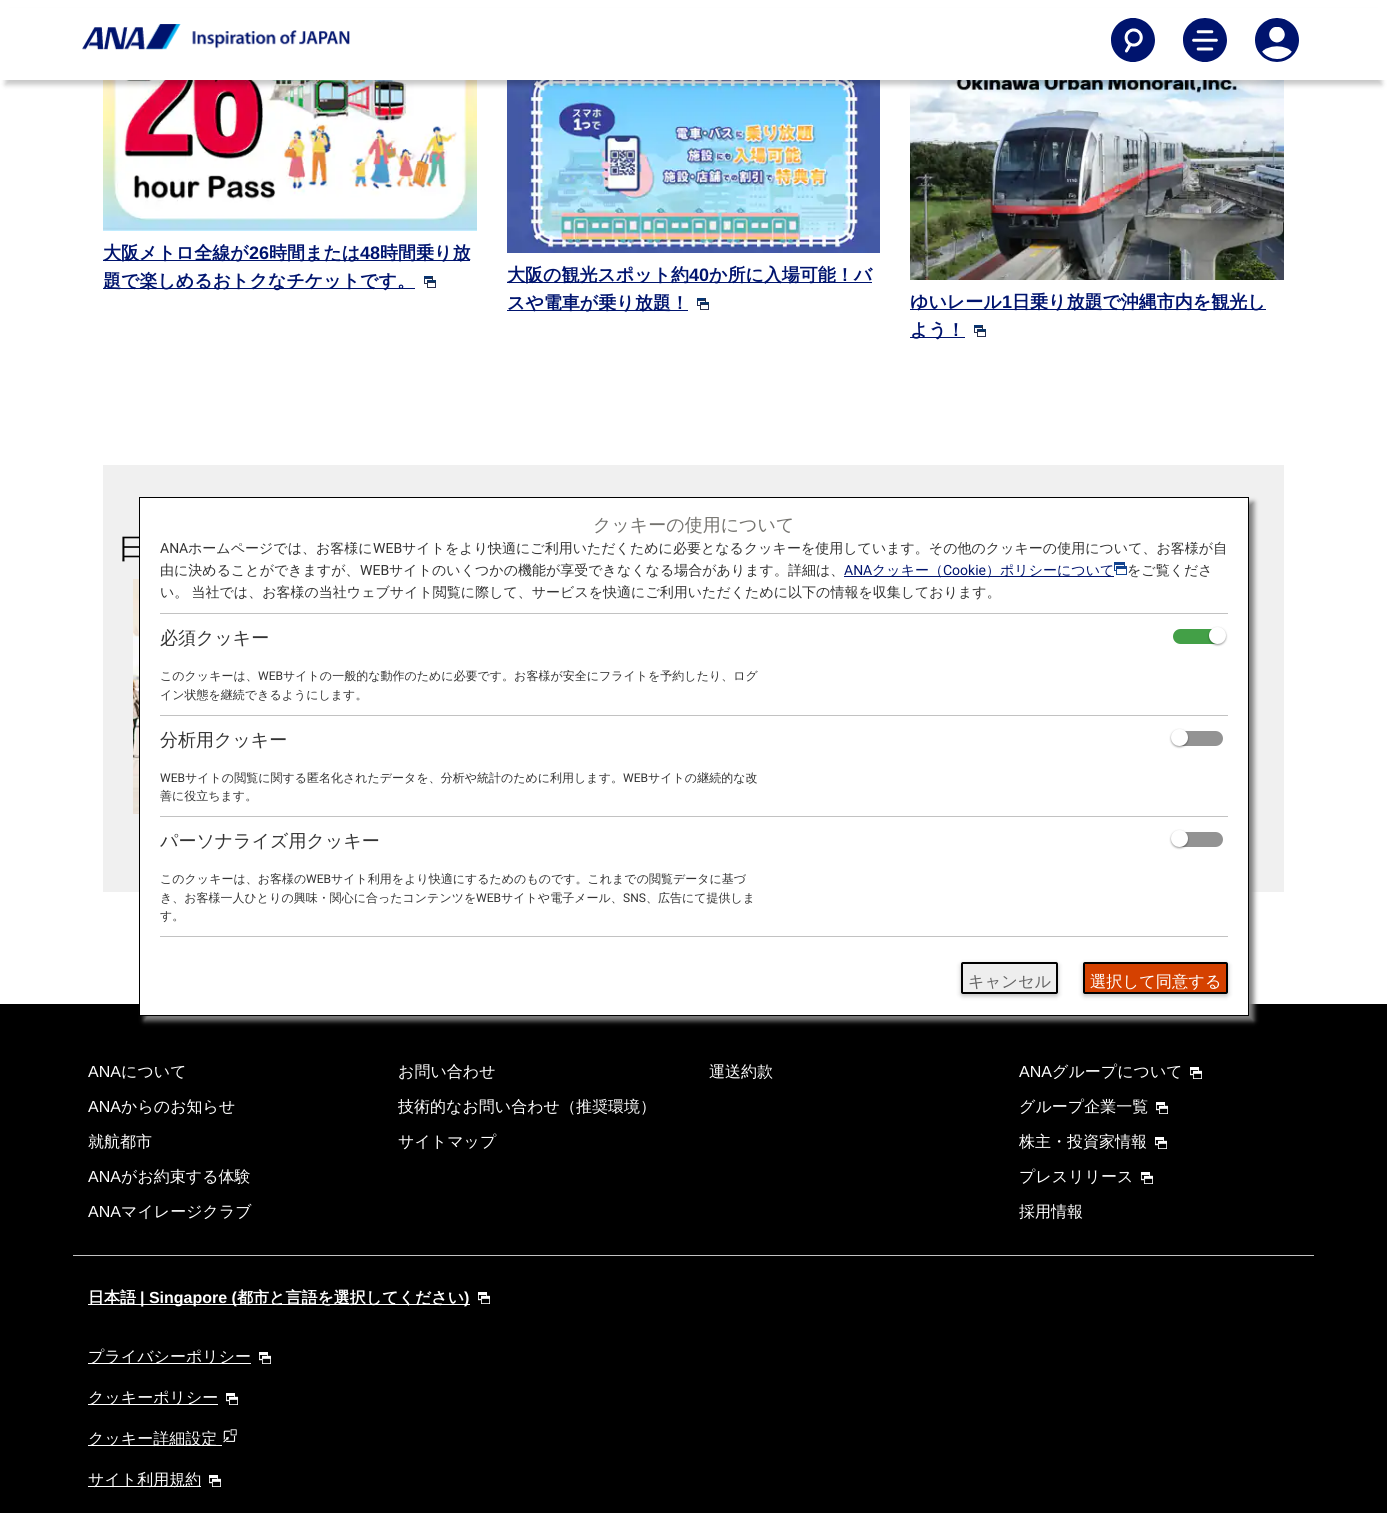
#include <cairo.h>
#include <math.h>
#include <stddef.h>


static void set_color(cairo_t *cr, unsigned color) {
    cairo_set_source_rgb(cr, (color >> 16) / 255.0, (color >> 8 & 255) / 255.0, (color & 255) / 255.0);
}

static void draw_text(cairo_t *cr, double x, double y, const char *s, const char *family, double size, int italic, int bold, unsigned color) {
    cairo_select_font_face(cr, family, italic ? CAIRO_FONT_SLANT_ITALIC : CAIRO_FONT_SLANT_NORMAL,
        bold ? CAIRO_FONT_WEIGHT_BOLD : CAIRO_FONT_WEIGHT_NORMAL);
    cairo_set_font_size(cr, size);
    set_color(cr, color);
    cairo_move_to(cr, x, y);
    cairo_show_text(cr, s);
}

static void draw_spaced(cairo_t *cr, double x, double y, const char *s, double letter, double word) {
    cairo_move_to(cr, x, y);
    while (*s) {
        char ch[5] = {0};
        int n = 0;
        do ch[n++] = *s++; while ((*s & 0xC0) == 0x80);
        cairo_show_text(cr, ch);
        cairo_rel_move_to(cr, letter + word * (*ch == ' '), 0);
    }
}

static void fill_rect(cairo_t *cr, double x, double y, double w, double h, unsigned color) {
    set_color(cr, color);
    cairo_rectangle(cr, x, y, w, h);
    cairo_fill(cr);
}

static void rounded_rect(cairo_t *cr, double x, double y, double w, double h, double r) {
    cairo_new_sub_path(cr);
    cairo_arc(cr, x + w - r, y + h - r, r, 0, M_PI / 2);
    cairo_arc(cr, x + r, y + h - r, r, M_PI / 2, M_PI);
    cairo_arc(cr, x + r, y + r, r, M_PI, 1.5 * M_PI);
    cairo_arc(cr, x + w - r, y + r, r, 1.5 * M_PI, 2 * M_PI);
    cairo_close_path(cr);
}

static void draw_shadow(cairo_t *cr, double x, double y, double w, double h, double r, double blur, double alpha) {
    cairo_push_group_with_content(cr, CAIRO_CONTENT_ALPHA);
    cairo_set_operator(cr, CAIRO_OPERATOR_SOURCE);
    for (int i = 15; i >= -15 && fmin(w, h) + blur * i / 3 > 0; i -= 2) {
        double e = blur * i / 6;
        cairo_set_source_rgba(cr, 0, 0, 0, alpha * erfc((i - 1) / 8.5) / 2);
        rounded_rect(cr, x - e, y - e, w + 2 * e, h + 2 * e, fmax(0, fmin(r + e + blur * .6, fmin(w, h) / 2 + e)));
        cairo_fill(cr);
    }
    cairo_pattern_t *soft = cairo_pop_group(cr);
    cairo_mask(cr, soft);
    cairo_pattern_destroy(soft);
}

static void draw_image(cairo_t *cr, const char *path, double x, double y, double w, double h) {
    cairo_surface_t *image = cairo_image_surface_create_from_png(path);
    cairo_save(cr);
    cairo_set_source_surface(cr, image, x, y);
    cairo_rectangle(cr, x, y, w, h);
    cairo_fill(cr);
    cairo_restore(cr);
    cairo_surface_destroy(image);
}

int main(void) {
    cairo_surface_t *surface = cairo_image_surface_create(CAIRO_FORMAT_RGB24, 1387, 1513);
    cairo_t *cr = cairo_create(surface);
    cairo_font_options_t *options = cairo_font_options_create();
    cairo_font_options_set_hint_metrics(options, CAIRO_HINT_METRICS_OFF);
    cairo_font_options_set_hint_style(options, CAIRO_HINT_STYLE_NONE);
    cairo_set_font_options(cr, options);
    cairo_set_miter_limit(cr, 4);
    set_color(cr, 0xFFFFFF);
    cairo_paint(cr);
    draw_image(cr, "assets/img5.png", 103, 80, 374, 151);
    draw_image(cr, "assets/img7.png", 507, 80, 373, 173);
    draw_image(cr, "assets/img8.png", 910, 80, 374, 200);
    set_color(cr, 0x000000);
    draw_shadow(cr, 10, 16, 1367, 60, 0, 5, 0.14);
    draw_shadow(cr, 5, 15, 1377, 70, 0, 2.5, 0.2);
    fill_rect(cr, 0, 8, 1387, 72, 0xFFFFFF);
    draw_image(cr, "assets/img1.png", 82, 24, 268, 26);
    draw_image(cr, "assets/img2.png", 1111, 18, 44, 44);
    draw_image(cr, "assets/img3.png", 1183, 18, 44, 44);
    draw_image(cr, "assets/img4.png", 1255, 18, 44, 44);
    fill_rect(cr, 103, 260, 367, 1, 0x00146E);
    draw_text(cr, 103, 259, "大阪メトロ全線が", "WenQuanYi Zen Hei", 18, 0, 1, 0x00146E);
    draw_text(cr, 249, 259, "26", "Liberation Sans", 18, 0, 1, 0x00146E);
    draw_text(cr, 269, 259, "時間または", "WenQuanYi Zen Hei", 18, 0, 1, 0x00146E);
    draw_text(cr, 360, 259, "48", "Liberation Sans", 18, 0, 1, 0x00146E);
    draw_text(cr, 380, 259, "時間乗り放", "WenQuanYi Zen Hei", 18, 0, 1, 0x00146E);
    fill_rect(cr, 103, 288, 312, 1, 0x00146E);
    draw_text(cr, 103, 287, "題で楽しめるおトクなチケットです。", "WenQuanYi Zen Hei", 18, 0, 1, 0x00146E);
    draw_image(cr, "assets/img6.png", 424, 276, 12, 12);
    fill_rect(cr, 507, 282, 365, 1, 0x00146E);
    draw_text(cr, 507, 281, "大阪の観光スポット約", "WenQuanYi Zen Hei", 18, 0, 1, 0x00146E);
    draw_text(cr, 689, 281, "40", "Liberation Sans", 18, 0, 1, 0x00146E);
    draw_text(cr, 709, 281, "か所に入場可能！バ", "WenQuanYi Zen Hei", 18, 0, 1, 0x00146E);
    fill_rect(cr, 507, 310, 181, 1, 0x00146E);
    draw_text(cr, 507, 309, "スや電車が乗り放題！", "WenQuanYi Zen Hei", 18, 0, 1, 0x00146E);
    draw_image(cr, "assets/img6.png", 697, 298, 12, 12);
    fill_rect(cr, 910, 309, 356, 1, 0x00146E);
    draw_text(cr, 910, 308, "ゆいレール", "WenQuanYi Zen Hei", 18, 0, 1, 0x00146E);
    draw_text(cr, 1002, 308, "1", "Liberation Sans", 18, 0, 1, 0x00146E);
    draw_text(cr, 1012, 308, "日乗り放題で沖縄市内を観光し", "WenQuanYi Zen Hei", 18, 0, 1, 0x00146E);
    fill_rect(cr, 910, 337, 55, 1, 0x00146E);
    draw_text(cr, 910, 336, "よう！", "WenQuanYi Zen Hei", 18, 0, 1, 0x00146E);
    draw_image(cr, "assets/img6.png", 974, 325, 12, 12);
    fill_rect(cr, 103, 465, 1181, 427, 0xF0F0F0);
    draw_text(cr, 118, 558, "日", "WenQuanYi Zen Hei Medium", 28, 0, 0, 0x000000);
    draw_image(cr, "assets/img9.png", 133, 579, 6, 235);
    fill_rect(cr, 0, 1004, 1387, 509, 0x000000);
    fill_rect(cr, 73, 1255, 1241, 1, 0xC2C2C2);
    draw_text(cr, 88, 1077, "ANA", "Liberation Sans", 16, 0, 0, 0xFFFFFF);
    draw_text(cr, 121, 1077, "について", "WenQuanYi Zen Hei Medium", 16, 0, 0, 0xFFFFFF);
    draw_text(cr, 88, 1112, "ANA", "Liberation Sans", 16, 0, 0, 0xFFFFFF);
    draw_text(cr, 121, 1112, "からのお知らせ", "WenQuanYi Zen Hei Medium", 16, 0, 0, 0xFFFFFF);
    draw_text(cr, 88, 1147, "就航都市", "WenQuanYi Zen Hei Medium", 16, 0, 0, 0xFFFFFF);
    draw_text(cr, 88, 1182, "ANA", "Liberation Sans", 16, 0, 0, 0xFFFFFF);
    draw_text(cr, 121, 1182, "がお約束する体験", "WenQuanYi Zen Hei Medium", 16, 0, 0, 0xFFFFFF);
    draw_text(cr, 88, 1217, "ANA", "Liberation Sans", 16, 0, 0, 0xFFFFFF);
    draw_text(cr, 121, 1217, "マイレージクラブ", "WenQuanYi Zen Hei Medium", 16, 0, 0, 0xFFFFFF);
    draw_text(cr, 398, 1077, "お問い合わせ", "WenQuanYi Zen Hei Medium", 16, 0, 0, 0xFFFFFF);
    draw_text(cr, 398, 1112, "技術的なお問い合わせ（推奨環境）", "WenQuanYi Zen Hei Medium", 16, 0, 0, 0xFFFFFF);
    draw_text(cr, 398, 1147, "サイトマップ", "WenQuanYi Zen Hei Medium", 16, 0, 0, 0xFFFFFF);
    draw_text(cr, 709, 1077, "運送約款", "WenQuanYi Zen Hei Medium", 16, 0, 0, 0xFFFFFF);
    draw_text(cr, 1019, 1077, "ANA", "Liberation Sans", 16, 0, 0, 0xFFFFFF);
    draw_text(cr, 1052, 1077, "グループについて", "WenQuanYi Zen Hei Medium", 16, 0, 0, 0xFFFFFF);
    draw_image(cr, "assets/img10.png", 1190, 1067, 12, 12);
    draw_text(cr, 1019, 1112, "グループ企業一覧", "WenQuanYi Zen Hei Medium", 16, 0, 0, 0xFFFFFF);
    draw_image(cr, "assets/img10.png", 1156, 1102, 12, 12);
    draw_text(cr, 1019, 1147, "株主・投資家情報", "WenQuanYi Zen Hei Medium", 16, 0, 0, 0xFFFFFF);
    draw_image(cr, "assets/img11.png", 1155, 1137, 12, 12);
    draw_text(cr, 1019, 1182, "プレスリリース", "WenQuanYi Zen Hei Medium", 16, 0, 0, 0xFFFFFF);
    draw_image(cr, "assets/img10.png", 1141, 1172, 12, 12);
    draw_text(cr, 1019, 1217, "採用情報", "WenQuanYi Zen Hei Medium", 16, 0, 0, 0xFFFFFF);
    fill_rect(cr, 88, 1304, 382, 1, 0xFFFFFF);
    draw_text(cr, 88, 1303, "日本語", "WenQuanYi Zen Hei", 16, 0, 1, 0xFFFFFF);
    draw_text(cr, 140, 1303, "| Singapore (", "Liberation Sans", 16, 0, 1, 0xFFFFFF);
    draw_text(cr, 237, 1303, "都市と言語を選択してください", "WenQuanYi Zen Hei", 16, 0, 1, 0xFFFFFF);
    draw_text(cr, 464, 1303, ")", "Liberation Sans", 16, 0, 1, 0xFFFFFF);
    draw_image(cr, "assets/img11.png", 478, 1292, 12, 12);
    fill_rect(cr, 88, 1363, 163, 1, 0xFFFFFF);
    draw_text(cr, 88, 1362, "プライバシーポリシー", "WenQuanYi Zen Hei Medium", 16, 0, 0, 0xFFFFFF);
    draw_image(cr, "assets/img10.png", 259, 1352, 12, 12);
    fill_rect(cr, 88, 1404, 130, 1, 0xFFFFFF);
    draw_text(cr, 88, 1403, "クッキーポリシー", "WenQuanYi Zen Hei Medium", 16, 0, 0, 0xFFFFFF);
    draw_image(cr, "assets/img11.png", 226, 1393, 12, 12);
    fill_rect(cr, 88, 1445, 134, 1, 0xFFFFFF);
    draw_text(cr, 88, 1444, "クッキー詳細設定", "WenQuanYi Zen Hei Medium", 16, 0, 0, 0xFFFFFF);
    draw_image(cr, "assets/img12.png", 223, 1429, 14, 14);
    fill_rect(cr, 88, 1486, 113, 1, 0xFFFFFF);
    draw_text(cr, 88, 1485, "サイト利用規約", "WenQuanYi Zen Hei Medium", 16, 0, 0, 0xFFFFFF);
    draw_image(cr, "assets/img11.png", 209, 1475, 12, 12);
    set_color(cr, 0x808080);
    draw_shadow(cr, 144, 502, 1110, 519, 0, 2.5, 1);
    set_color(cr, 0xFFFFFF);
    cairo_rectangle(cr, 139.5, 497.5, 1109, 518);
    cairo_fill_preserve(cr);
    set_color(cr, 0x000000);
    cairo_set_line_width(cr, 1);
    cairo_stroke(cr);
    draw_text(cr, 160, 553, "ANA", "Roboto", 14, 0, 0, 0x333333);
    draw_text(cr, 188, 553, "ホームページでは、お客様に", "WenQuanYi Zen Hei Medium", 14, 0, 0, 0x333333);
    draw_text(cr, 402, 553, "サイトをより快適にご利用いただくために必要となるクッキーを使用しています。その他のクッキーの使用について、お客様が自", "WenQuanYi Zen Hei Medium", 14, 0, 0, 0x333333);
    fill_rect(cr, 335, 541, 857, 1, 0xFFFFFF);
    draw_text(cr, 593, 531, "クッキーの使用について", "WenQuanYi Zen Hei Medium", 18, 0, 0, 0x74736F);
    draw_text(cr, 373, 553, "WEB", "Roboto", 14, 0, 0, 0x333333);
    draw_text(cr, 160, 575, "由に決めることができますが、", "WenQuanYi Zen Hei Medium", 14, 0, 0, 0x333333);
    draw_text(cr, 360, 575, "WEB", "Roboto", 14, 0, 0, 0x333333);
    draw_text(cr, 389, 575, "サイトのいくつかの機能が享受できなくなる場合があります。詳細は、", "WenQuanYi Zen Hei Medium", 14, 0, 0, 0x333333);
    draw_text(cr, 844, 575, "ANA", "Roboto", 14, 0, 0, 0x00146E);
    fill_rect(cr, 844, 576, 270, 1, 0x00146E);
    draw_text(cr, 872, 575, "クッキー（", "WenQuanYi Zen Hei Medium", 14, 0, 0, 0x00146E);
    draw_text(cr, 943, 575, "Cookie", "Roboto", 14, 0, 0, 0x00146E);
    draw_text(cr, 986, 575, "）ポリシーについて", "WenQuanYi Zen Hei Medium", 14, 0, 0, 0x00146E);
    draw_image(cr, "assets/img13.png", 1114, 562, 13, 13);
    draw_text(cr, 1127, 575, "をご覧くださ", "WenQuanYi Zen Hei Medium", 14, 0, 0, 0x333333);
    draw_spaced(cr, 160, 597, "い。 当社では、お客様の当社ウェブサイト閲覧に際して、サービスを快適にご利用いただくために以下の情報を収集しております。", 0, -1);
    fill_rect(cr, 160, 613, 1068, 1, 0xC2C2C2);
    draw_text(cr, 160, 644, "必須クッキー", "WenQuanYi Zen Hei Medium", 18, 0, 0, 0x333333);
    set_color(cr, 0x43A047);
    rounded_rect(cr, 1173, 629, 50, 15, 7.5);
    cairo_fill(cr);
    set_color(cr, 0x000000);
    draw_shadow(cr, 1209, 628, 17, 17, 8.5, 1, 0.4);
    set_color(cr, 0xFFFFFF);
    cairo_arc(cr, 1217.5, 635.5, 8.5, 0, 2 * M_PI);
    cairo_fill(cr);
    draw_text(cr, 160, 680, "このクッキーは、", "WenQuanYi Zen Hei Medium", 12, 0, 0, 0x333333);
    draw_text(cr, 258, 680, "WEB", "Roboto", 12, 0, 0, 0x333333);
    draw_text(cr, 283, 680, "サイトの一般的な動作のために必要です。お客様が安全にフライトを予約したり、ログ", "WenQuanYi Zen Hei Medium", 12, 0, 0, 0x333333);
    draw_text(cr, 160, 699, "イン状態を継続できるようにします。", "WenQuanYi Zen Hei Medium", 12, 0, 0, 0x333333);
    fill_rect(cr, 160, 715, 1068, 1, 0xC2C2C2);
    draw_text(cr, 160, 746, "分析用クッキー", "WenQuanYi Zen Hei Medium", 18, 0, 0, 0x333333);
    set_color(cr, 0x939393);
    rounded_rect(cr, 1173, 731, 50, 15, 7.5);
    cairo_fill(cr);
    set_color(cr, 0x000000);
    draw_shadow(cr, 1171, 730, 17, 17, 8.5, 1, 0.4);
    set_color(cr, 0xFFFFFF);
    cairo_arc(cr, 1179.5, 737.5, 8.5, 0, 2 * M_PI);
    cairo_fill(cr);
    draw_text(cr, 160, 782, "WEB", "Roboto", 12, 0, 0, 0x333333);
    draw_text(cr, 185, 782, "サイトの閲覧に関する匿名化されたデータを、分析や統計のために利用します。", "WenQuanYi Zen Hei Medium", 12, 0, 0, 0x333333);
    draw_text(cr, 623, 782, "WEB", "Roboto", 12, 0, 0, 0x333333);
    draw_text(cr, 648, 782, "サイトの継続的な改", "WenQuanYi Zen Hei Medium", 12, 0, 0, 0x333333);
    draw_text(cr, 160, 800, "善に役立ちます。", "WenQuanYi Zen Hei Medium", 12, 0, 0, 0x333333);
    fill_rect(cr, 160, 816, 1068, 1, 0xC2C2C2);
    draw_text(cr, 160, 847, "パーソナライズ用クッキー", "WenQuanYi Zen Hei Medium", 18, 0, 0, 0x333333);
    set_color(cr, 0x939393);
    rounded_rect(cr, 1173, 832, 50, 15, 7.5);
    cairo_fill(cr);
    set_color(cr, 0x000000);
    draw_shadow(cr, 1171, 831, 17, 17, 8.5, 1, 0.4);
    set_color(cr, 0xFFFFFF);
    cairo_arc(cr, 1179.5, 838.5, 8.5, 0, 2 * M_PI);
    cairo_fill(cr);
    draw_text(cr, 160, 883, "このクッキーは、お客様の", "WenQuanYi Zen Hei Medium", 12, 0, 0, 0x333333);
    draw_text(cr, 306, 883, "WEB", "Roboto", 12, 0, 0, 0x333333);
    draw_text(cr, 331, 883, "サイト利用をより快適にするためのものです。これまでの閲覧データに基づ", "WenQuanYi Zen Hei Medium", 12, 0, 0, 0x333333);
    draw_text(cr, 160, 902, "き、お客様一人ひとりの興味・関心に合ったコンテンツを", "WenQuanYi Zen Hei Medium", 12, 0, 0, 0x333333);
    draw_text(cr, 476, 902, "WEB", "Roboto", 12, 0, 0, 0x333333);
    draw_text(cr, 501, 902, "サイトや電子メール、", "WenQuanYi Zen Hei Medium", 12, 0, 0, 0x333333);
    draw_text(cr, 623, 902, "SNS", "Roboto", 12, 0, 0, 0x333333);
    draw_text(cr, 646, 902, "、広告にて提供しま", "WenQuanYi Zen Hei Medium", 12, 0, 0, 0x333333);
    draw_text(cr, 160, 920, "す。", "WenQuanYi Zen Hei Medium", 12, 0, 0, 0x333333);
    fill_rect(cr, 160, 936, 1068, 1, 0xC2C2C2);
    set_color(cr, 0x000000);
    draw_shadow(cr, 961, 964, 97, 32, 2, 2.5, 0.26);
    set_color(cr, 0xEEEEEE);
    rounded_rect(cr, 962, 963, 95, 30, 1);
    cairo_fill_preserve(cr);
    set_color(cr, 0x000000);
    cairo_set_line_width(cr, 2);
    cairo_stroke(cr);
    draw_text(cr, 968, 987, "キャンセル", "WenQuanYi Zen Hei Medium", 16.25, 0, 0, 0x646464);
    set_color(cr, 0x000000);
    draw_shadow(cr, 1083, 964, 145, 32, 2, 2.5, 0.26);
    set_color(cr, 0xD54100);
    rounded_rect(cr, 1084, 963, 143, 30, 1);
    cairo_fill_preserve(cr);
    set_color(cr, 0x000000);
    cairo_stroke(cr);
    draw_text(cr, 1090, 987, "選択して同意する", "WenQuanYi Zen Hei Medium", 16.25, 0, 0, 0xFFFFFF);
    cairo_surface_write_to_png(surface, "output.png");
    cairo_font_options_destroy(options);
    cairo_destroy(cr);
    cairo_surface_destroy(surface);
    return 0;
}
